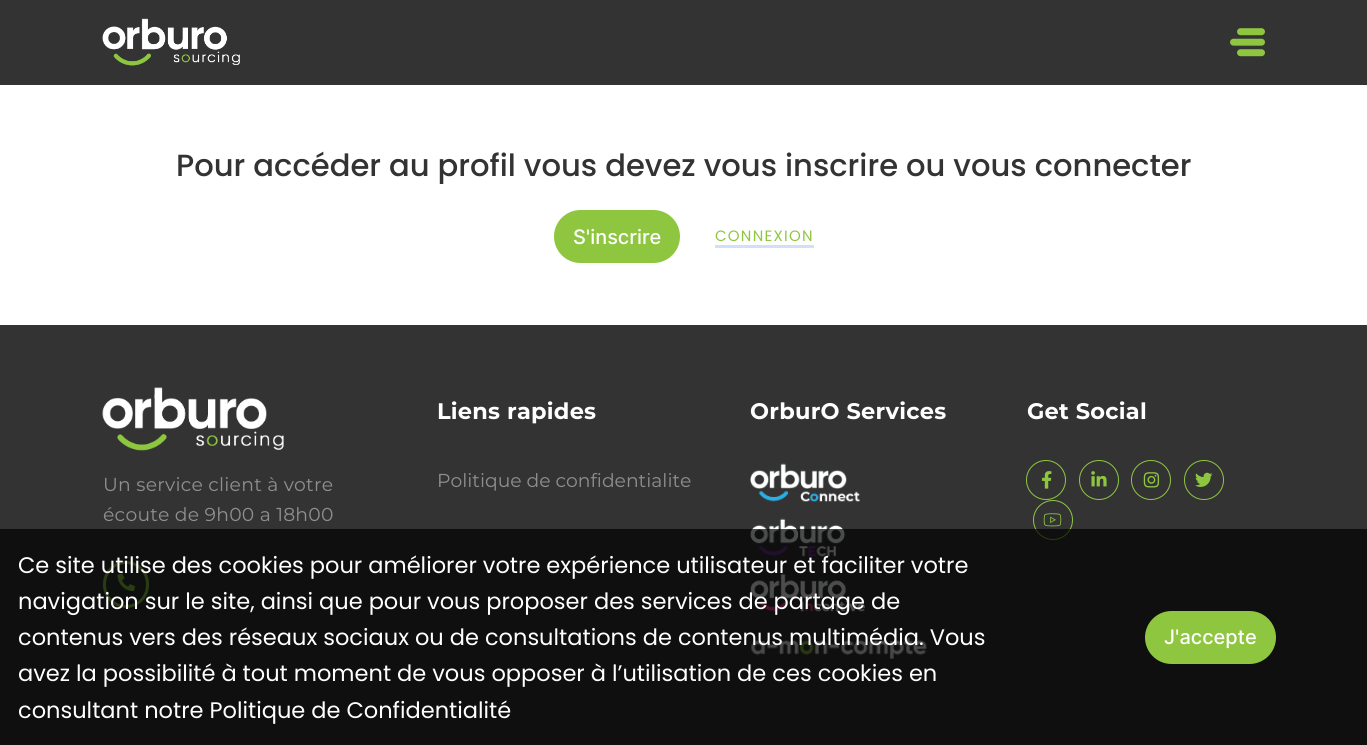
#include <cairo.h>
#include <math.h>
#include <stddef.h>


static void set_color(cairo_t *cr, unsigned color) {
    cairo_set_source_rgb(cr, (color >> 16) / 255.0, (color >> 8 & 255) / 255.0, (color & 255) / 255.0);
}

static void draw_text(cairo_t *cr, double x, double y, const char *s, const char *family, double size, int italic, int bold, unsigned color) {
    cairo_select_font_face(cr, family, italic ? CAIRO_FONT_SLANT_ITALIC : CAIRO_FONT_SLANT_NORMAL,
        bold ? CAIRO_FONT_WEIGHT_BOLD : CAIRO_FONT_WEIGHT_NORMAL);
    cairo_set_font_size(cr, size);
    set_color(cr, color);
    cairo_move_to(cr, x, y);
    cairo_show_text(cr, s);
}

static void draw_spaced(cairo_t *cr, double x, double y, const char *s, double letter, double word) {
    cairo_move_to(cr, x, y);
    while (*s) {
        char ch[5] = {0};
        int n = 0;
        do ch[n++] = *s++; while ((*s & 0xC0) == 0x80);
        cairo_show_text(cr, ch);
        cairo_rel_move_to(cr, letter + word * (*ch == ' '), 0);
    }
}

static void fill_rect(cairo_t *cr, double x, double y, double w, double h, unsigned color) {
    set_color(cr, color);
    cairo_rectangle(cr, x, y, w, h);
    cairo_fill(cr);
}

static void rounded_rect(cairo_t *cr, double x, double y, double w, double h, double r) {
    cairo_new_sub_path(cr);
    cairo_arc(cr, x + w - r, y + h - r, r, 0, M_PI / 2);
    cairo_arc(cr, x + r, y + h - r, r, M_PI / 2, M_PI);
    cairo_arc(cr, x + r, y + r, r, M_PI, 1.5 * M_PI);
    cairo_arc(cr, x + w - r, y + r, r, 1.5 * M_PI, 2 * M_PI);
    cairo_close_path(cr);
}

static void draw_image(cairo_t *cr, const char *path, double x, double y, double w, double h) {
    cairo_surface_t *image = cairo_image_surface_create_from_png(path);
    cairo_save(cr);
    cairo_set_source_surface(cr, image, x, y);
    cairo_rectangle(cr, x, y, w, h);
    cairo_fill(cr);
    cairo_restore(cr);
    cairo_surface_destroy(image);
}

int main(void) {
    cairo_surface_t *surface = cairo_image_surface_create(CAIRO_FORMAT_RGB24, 1367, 745);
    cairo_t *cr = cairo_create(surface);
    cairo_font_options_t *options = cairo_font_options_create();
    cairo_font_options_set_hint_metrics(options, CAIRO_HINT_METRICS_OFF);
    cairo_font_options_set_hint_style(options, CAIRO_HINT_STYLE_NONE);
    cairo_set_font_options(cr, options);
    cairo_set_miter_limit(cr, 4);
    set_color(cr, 0xFFFFFF);
    cairo_paint(cr);
    fill_rect(cr, 0, 0, 1367, 85, 0x333333);
    draw_image(cr, "assets/img1.png", 102, 18, 138, 48);
    draw_image(cr, "assets/img2.png", 1230, 28, 35, 29);
    draw_text(cr, 176, 176, "Pour accéder au profil vous devez vous inscrire ou vous connecter", "Poppins Medium", 30.6, 0, 0, 0x333333);
    set_color(cr, 0x8FC640);
    rounded_rect(cr, 554, 210, 126, 53, 26.5);
    cairo_fill(cr);
    draw_text(cr, 573, 244, "S'inscrire", "Inter Medium", 20, 0, 0, 0xFFFFFF);
    fill_rect(cr, 715, 245, 99, 3, 0xD1E0F8);
    cairo_select_font_face(cr, "Poppins", CAIRO_FONT_SLANT_NORMAL, CAIRO_FONT_WEIGHT_NORMAL);
    cairo_set_font_size(cr, 15);
    set_color(cr, 0x8FC640);
    draw_spaced(cr, 715, 241, "CONNEXION", 1.25, 0);
    fill_rect(cr, 0, 325, 1367, 420, 0x333333);
    cairo_select_font_face(cr, "Montserrat", CAIRO_FONT_SLANT_NORMAL, CAIRO_FONT_WEIGHT_BOLD);
    cairo_set_font_size(cr, 22.5);
    set_color(cr, 0xFFFFFF);
    draw_spaced(cr, 437, 419, "Liens rapides", 0.25, 0);
    draw_text(cr, 437, 487, "Politique de confidentialite", "Montserrat", 18.75, 0, 0, 0x8E9090);
    cairo_select_font_face(cr, "Montserrat", CAIRO_FONT_SLANT_NORMAL, CAIRO_FONT_WEIGHT_BOLD);
    cairo_set_font_size(cr, 22.5);
    set_color(cr, 0xFFFFFF);
    draw_spaced(cr, 750, 419, "OrburO Services", 0.25, 0);
    draw_image(cr, "assets/img3.png", 750, 463, 110, 39);
    draw_image(cr, "assets/img4.png", 750, 518, 95, 39);
    draw_image(cr, "assets/img5.png", 750, 573, 115, 39);
    draw_image(cr, "assets/img6.png", 751, 637, 176, 22);
    draw_spaced(cr, 1027, 419, "Get Social", 0.25, 0);
    cairo_new_path(cr);
    cairo_arc(cr, 1046, 480, 19.5, 0, 2 * M_PI);
    set_color(cr, 0x8FC640);
    cairo_set_line_width(cr, 1);
    cairo_stroke(cr);
    draw_image(cr, "assets/img7.png", 1042, 471, 10, 18);
    cairo_arc(cr, 1099, 480, 19.5, 0, 2 * M_PI);
    cairo_stroke(cr);
    draw_image(cr, "assets/img8.png", 1091, 471, 16, 16);
    cairo_arc(cr, 1151, 480, 19.5, 0, 2 * M_PI);
    cairo_stroke(cr);
    draw_image(cr, "assets/img9.png", 1143, 472, 17, 16);
    cairo_arc(cr, 1204, 480, 19.5, 0, 2 * M_PI);
    cairo_stroke(cr);
    draw_image(cr, "assets/img10.png", 1195, 472, 18, 15);
    cairo_arc(cr, 1053, 520, 19.5, 0, 2 * M_PI);
    cairo_stroke(cr);
    draw_image(cr, "assets/img11.png", 1043, 513, 19, 14);
    draw_image(cr, "assets/img12.png", 102, 387, 182, 64);
    cairo_select_font_face(cr, "Montserrat", CAIRO_FONT_SLANT_NORMAL, CAIRO_FONT_WEIGHT_NORMAL);
    cairo_set_font_size(cr, 18.75);
    set_color(cr, 0x8E9090);
    draw_spaced(cr, 103, 491, "Un service client à votre", 0.25, 0);
    draw_spaced(cr, 103, 521, "écoute de 9h00 a 18h00", 0.25, 0);
    set_color(cr, 0x2E3233);
    rounded_rect(cr, 104.5, 562.5, 43, 44, 21.5);
    cairo_fill_preserve(cr);
    set_color(cr, 0x8FC640);
    cairo_set_line_width(cr, 3);
    cairo_stroke(cr);
    draw_image(cr, "assets/img13.png", 117, 573, 18, 19);
    cairo_set_source_rgba(cr, 0, 0, 0, 0.7);
    cairo_rectangle(cr, 0, 529, 1367, 216);
    cairo_fill(cr);
    draw_text(cr, 18, 573, "Ce site utilise des cookies pour améliorer votre expérience utilisateur et faciliter votre", "Poppins", 22.5, 0, 0, 0xFFFFFF);
    draw_text(cr, 18, 609, "navigation sur le site, ainsi que pour vous proposer des services de partage de", "Poppins", 22.5, 0, 0, 0xFFFFFF);
    draw_text(cr, 18, 645, "contenus vers des réseaux sociaux ou de consultations de contenus multimédia. Vous", "Poppins", 22.5, 0, 0, 0xFFFFFF);
    draw_text(cr, 18, 681, "avez la possibilité à tout moment de vous opposer à l’utilisation de ces cookies en", "Poppins", 22.5, 0, 0, 0xFFFFFF);
    draw_text(cr, 18, 718, "consultant notre Politique de Confidentialité", "Poppins", 22.5, 0, 0, 0xFFFFFF);
    set_color(cr, 0x8FC640);
    rounded_rect(cr, 1145, 611, 131, 53, 26.5);
    cairo_fill(cr);
    draw_text(cr, 1164, 644, "J'accepte", "Inter Medium", 20, 0, 0, 0xFFFFFF);
    cairo_surface_write_to_png(surface, "output.png");
    cairo_font_options_destroy(options);
    cairo_destroy(cr);
    cairo_surface_destroy(surface);
    return 0;
}
